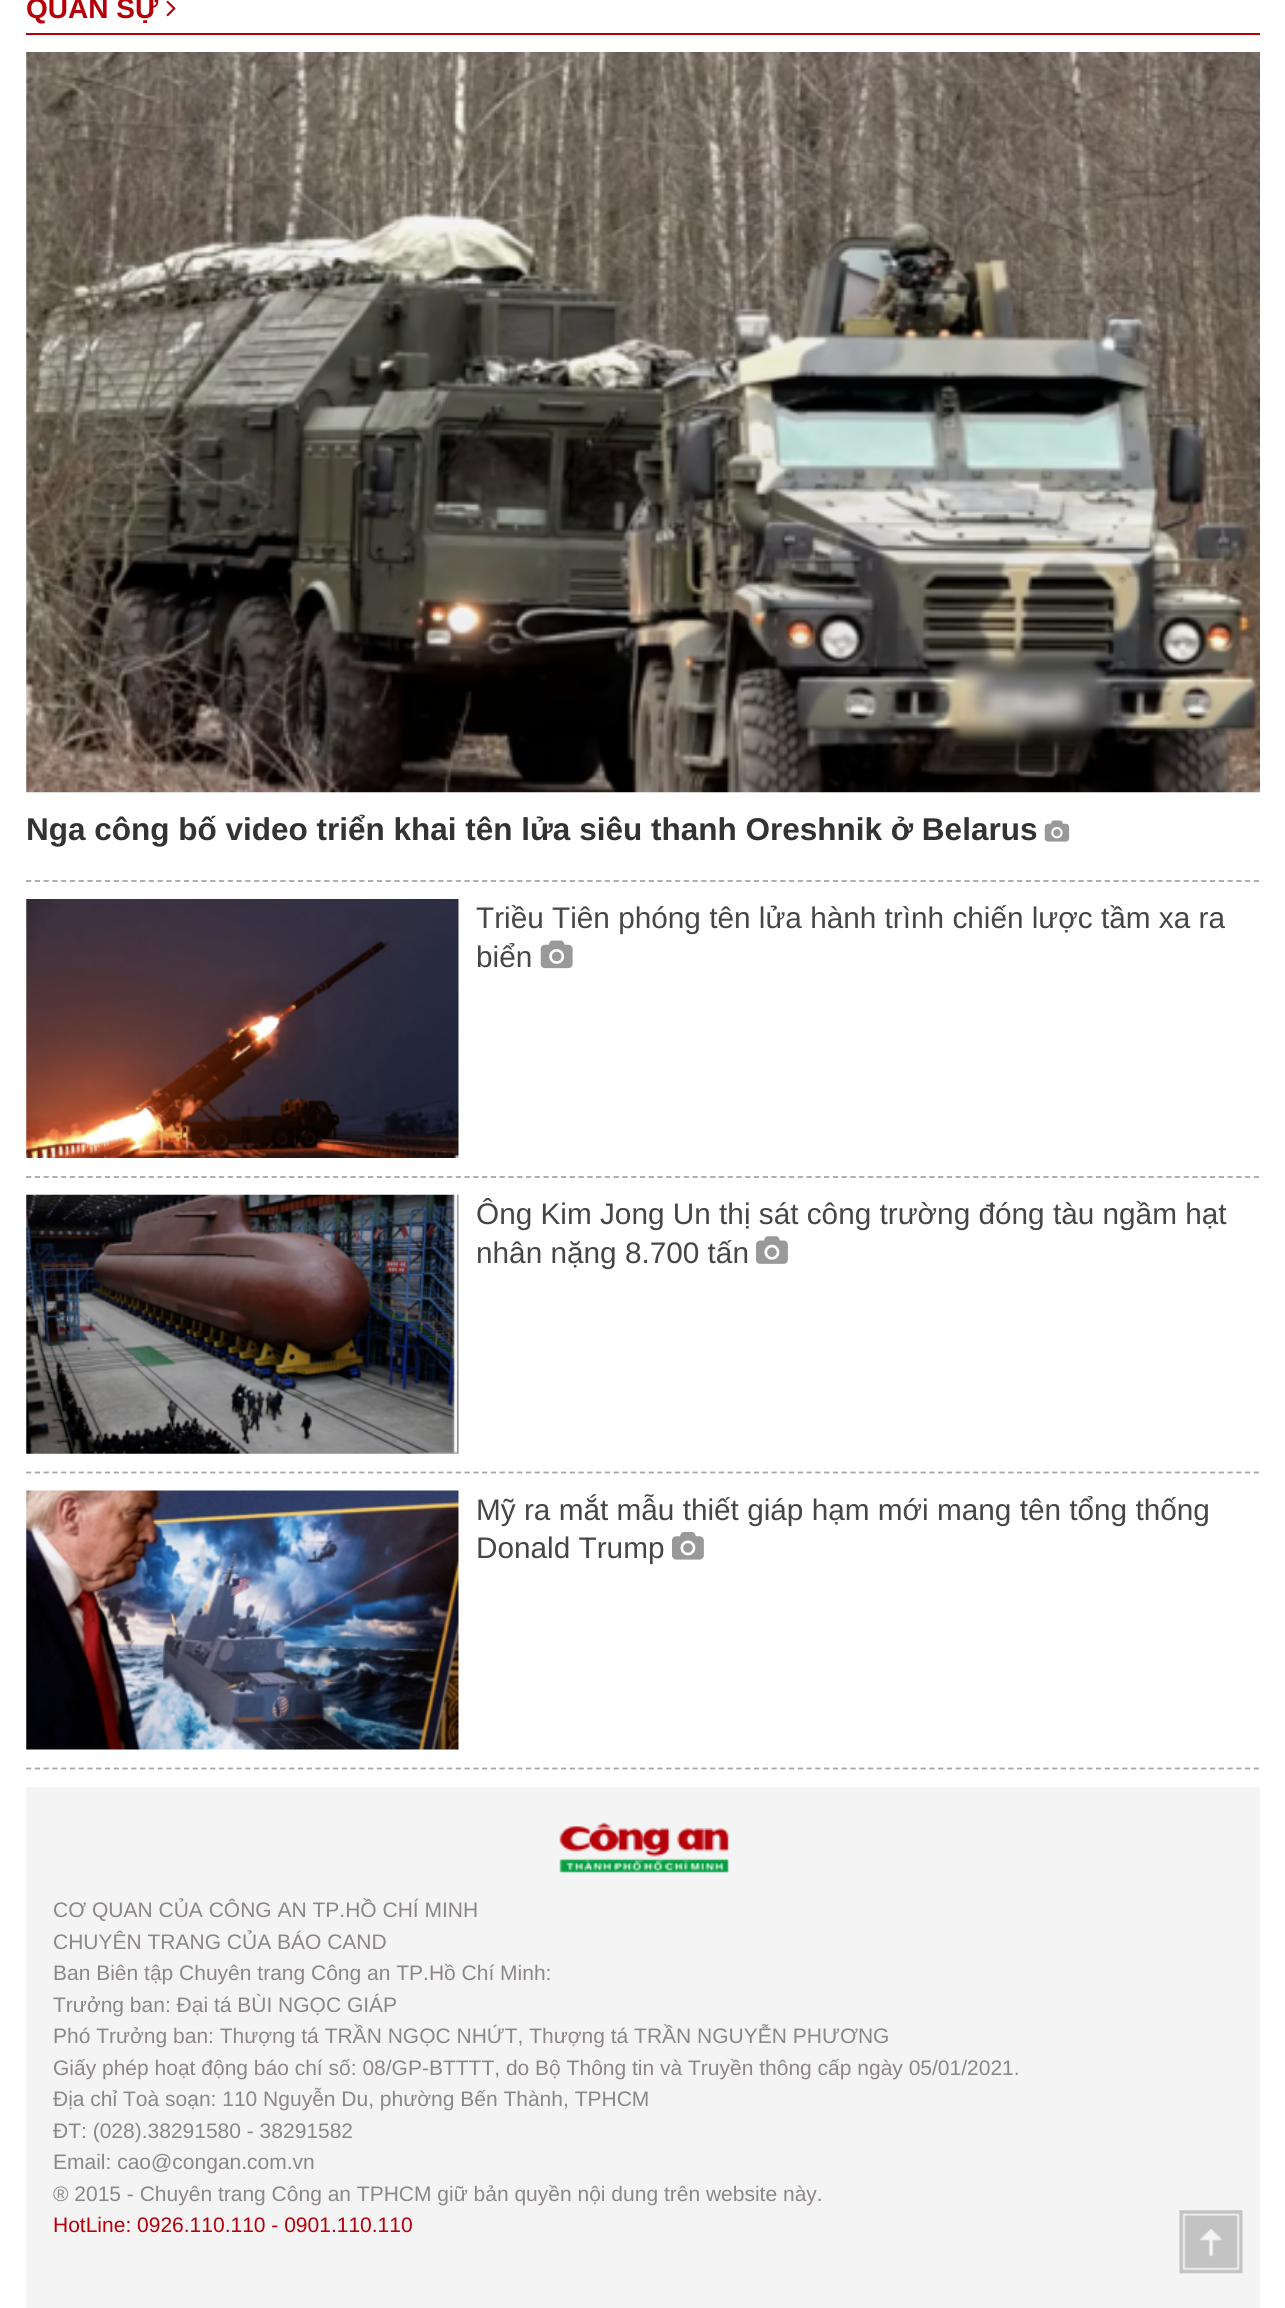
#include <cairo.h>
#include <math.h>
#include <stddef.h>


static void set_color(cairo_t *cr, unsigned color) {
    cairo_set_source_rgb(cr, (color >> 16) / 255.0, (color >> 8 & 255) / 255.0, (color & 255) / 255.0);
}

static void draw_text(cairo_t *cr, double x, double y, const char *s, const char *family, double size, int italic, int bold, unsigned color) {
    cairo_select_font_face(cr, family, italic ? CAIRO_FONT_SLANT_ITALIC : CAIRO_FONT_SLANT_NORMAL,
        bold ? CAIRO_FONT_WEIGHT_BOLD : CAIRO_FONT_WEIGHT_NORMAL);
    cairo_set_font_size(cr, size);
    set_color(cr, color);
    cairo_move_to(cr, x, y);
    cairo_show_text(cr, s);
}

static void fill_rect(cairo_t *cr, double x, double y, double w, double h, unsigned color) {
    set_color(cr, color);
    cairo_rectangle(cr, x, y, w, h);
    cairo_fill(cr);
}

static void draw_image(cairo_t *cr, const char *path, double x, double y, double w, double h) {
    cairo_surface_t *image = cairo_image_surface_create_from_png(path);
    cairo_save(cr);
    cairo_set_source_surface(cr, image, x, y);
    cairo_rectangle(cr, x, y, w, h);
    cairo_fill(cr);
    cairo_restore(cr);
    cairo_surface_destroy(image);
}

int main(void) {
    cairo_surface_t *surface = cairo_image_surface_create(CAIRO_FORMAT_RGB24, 1285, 2308);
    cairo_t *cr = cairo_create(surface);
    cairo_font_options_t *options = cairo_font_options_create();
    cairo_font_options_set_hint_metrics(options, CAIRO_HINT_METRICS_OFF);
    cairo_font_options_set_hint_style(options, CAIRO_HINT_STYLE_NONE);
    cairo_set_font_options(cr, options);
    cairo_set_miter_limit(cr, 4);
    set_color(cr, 0xFFFFFF);
    cairo_paint(cr);
    draw_text(cr, 26, 18, "QUÂN SỰ", "Liberation Sans", 28, 0, 1, 0xB50009);
    draw_image(cr, "assets/img1.png", 166, 0, 10, 17);
    fill_rect(cr, 26, 33, 1234, 2, 0xB50009);
    draw_image(cr, "assets/img2.png", 26, 52, 1234, 741);
    draw_text(cr, 26, 840, "Nga công bố video triển khai tên lửa siêu thanh Oreshnik ở Belarus", "Liberation Sans", 31.5, 0, 1, 0x333333);
    draw_image(cr, "assets/img3.png", 1044, 820, 26, 22);
    cairo_new_path(cr);
    cairo_move_to(cr, 26, 881);
    cairo_line_to(cr, 1260, 881);
    set_color(cr, 0xA7A7A7);
    cairo_set_line_width(cr, 1.8);
    cairo_set_dash(cr, (double[]){5.25, 3.52}, 2, 0);
    cairo_stroke(cr);
    cairo_new_path(cr);
    cairo_move_to(cr, 26, 1177);
    cairo_line_to(cr, 1260, 1177);
    cairo_stroke(cr);
    draw_image(cr, "assets/img4.png", 26, 899, 433, 259);
    draw_text(cr, 476, 928, "Triều Tiên phóng tên lửa hành trình chiến lược tầm xa ra", "Liberation Sans", 29.75, 0, 0, 0x464646);
    draw_text(cr, 476, 967, "biển", "Liberation Sans", 29.75, 0, 0, 0x464646);
    draw_image(cr, "assets/img5.png", 540, 940, 33, 29);
    cairo_new_path(cr);
    cairo_move_to(cr, 26, 1472.5);
    cairo_line_to(cr, 1260, 1472.5);
    set_color(cr, 0xA7A7A7);
    cairo_stroke(cr);
    draw_image(cr, "assets/img6.png", 26, 1194, 433, 260);
    draw_text(cr, 476, 1224, "Ông Kim Jong Un thị sát công trường đóng tàu ngầm hạt", "Liberation Sans", 29.75, 0, 0, 0x464646);
    draw_text(cr, 476, 1263, "nhân nặng 8.700 tấn", "Liberation Sans", 29.75, 0, 0, 0x464646);
    draw_image(cr, "assets/img7.png", 756, 1236, 32, 28);
    cairo_new_path(cr);
    cairo_move_to(cr, 26, 1768.5);
    cairo_line_to(cr, 1260, 1768.5);
    set_color(cr, 0xA7A7A7);
    cairo_stroke(cr);
    draw_image(cr, "assets/img8.png", 26, 1490, 433, 260);
    draw_text(cr, 476, 1520, "Mỹ ra mắt mẫu thiết giáp hạm mới mang tên tổng thống", "Liberation Sans", 29.75, 0, 0, 0x464646);
    draw_text(cr, 476, 1558, "Donald Trump", "Liberation Sans", 29.75, 0, 0, 0x464646);
    draw_image(cr, "assets/img9.png", 672, 1532, 32, 28);
    fill_rect(cr, 26, 1787, 1234, 521, 0xF4F4F4);
    draw_image(cr, "assets/img10.png", 559, 1822, 170, 51);
    draw_text(cr, 53, 1917, "CƠ QUAN CỦA CÔNG AN TP.HỒ CHÍ MINH", "Liberation Sans", 21, 0, 0, 0x8B868A);
    draw_text(cr, 53, 1949, "CHUYÊN TRANG CỦA BÁO CAND", "Liberation Sans", 21, 0, 0, 0x8B868A);
    draw_text(cr, 53, 1980, "Ban Biên tập Chuyên trang Công an TP.Hồ Chí Minh:", "Liberation Sans", 21, 0, 0, 0x8B868A);
    draw_text(cr, 53, 2012, "Trưởng ban: Đại tá BÙI NGỌC GIÁP", "Liberation Sans", 21, 0, 0, 0x8B868A);
    draw_text(cr, 53, 2043, "Phó Trưởng ban: Thượng tá TRẦN NGỌC NHỨT, Thượng tá TRẦN NGUYỄN PHƯƠNG", "Liberation Sans", 21, 0, 0, 0x8B868A);
    draw_text(cr, 53, 2075, "Giấy phép hoạt động báo chí số: 08/GP-BTTTT, do Bộ Thông tin và Truyền thông cấp ngày 05/01/2021.", "Liberation Sans", 21, 0, 0, 0x8B868A);
    draw_text(cr, 53, 2106, "Địa chỉ Toà soạn: 110 Nguyễn Du, phường Bến Thành, TPHCM", "Liberation Sans", 21, 0, 0, 0x8B868A);
    draw_text(cr, 53, 2138, "ĐT: (028).38291580 - 38291582", "Liberation Sans", 21, 0, 0, 0x8B868A);
    draw_text(cr, 53, 2169, "Email: cao@congan.com.vn", "Liberation Sans", 21, 0, 0, 0x8B868A);
    draw_text(cr, 53, 2201, "® 2015 - Chuyên trang Công an TPHCM giữ bản quyền nội dung trên website này.", "Liberation Sans", 21, 0, 0, 0x8B868A);
    draw_text(cr, 53, 2232, "HotLine: 0926.110.110 - 0901.110.110", "Liberation Sans", 21, 0, 0, 0xB50009);
    draw_image(cr, "assets/img11.png", 1179, 2210, 64, 64);
    cairo_surface_write_to_png(surface, "output.png");
    cairo_font_options_destroy(options);
    cairo_destroy(cr);
    cairo_surface_destroy(surface);
    return 0;
}
